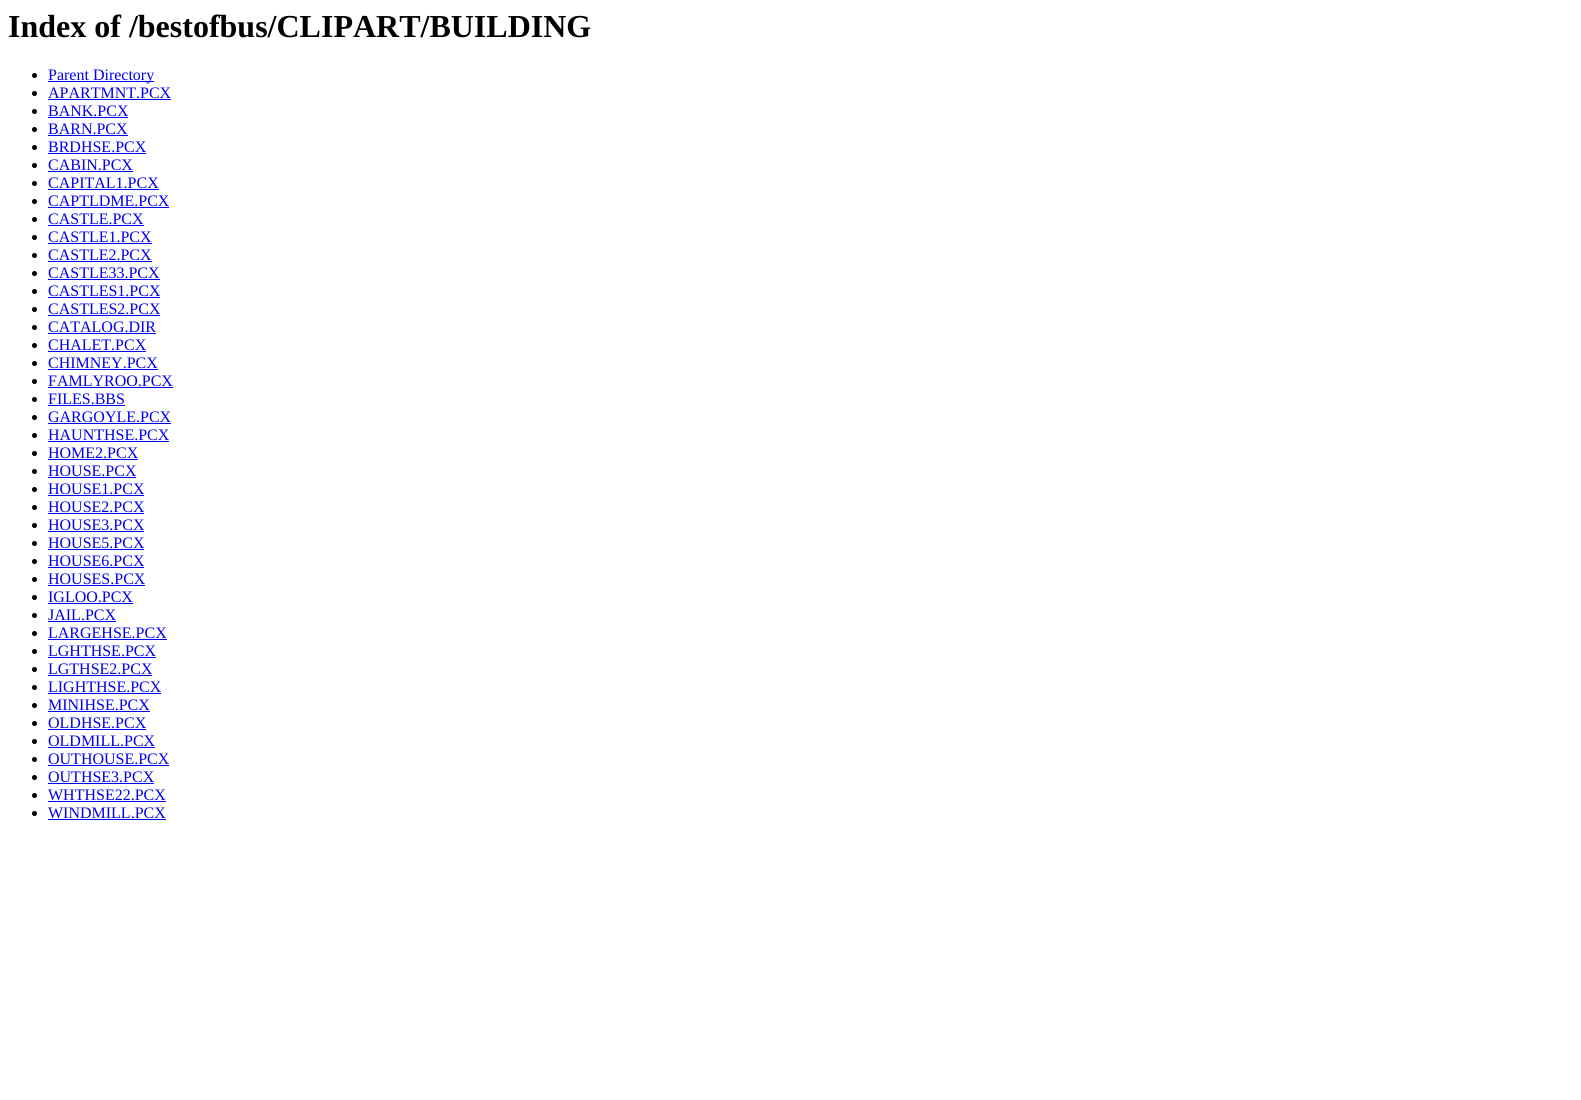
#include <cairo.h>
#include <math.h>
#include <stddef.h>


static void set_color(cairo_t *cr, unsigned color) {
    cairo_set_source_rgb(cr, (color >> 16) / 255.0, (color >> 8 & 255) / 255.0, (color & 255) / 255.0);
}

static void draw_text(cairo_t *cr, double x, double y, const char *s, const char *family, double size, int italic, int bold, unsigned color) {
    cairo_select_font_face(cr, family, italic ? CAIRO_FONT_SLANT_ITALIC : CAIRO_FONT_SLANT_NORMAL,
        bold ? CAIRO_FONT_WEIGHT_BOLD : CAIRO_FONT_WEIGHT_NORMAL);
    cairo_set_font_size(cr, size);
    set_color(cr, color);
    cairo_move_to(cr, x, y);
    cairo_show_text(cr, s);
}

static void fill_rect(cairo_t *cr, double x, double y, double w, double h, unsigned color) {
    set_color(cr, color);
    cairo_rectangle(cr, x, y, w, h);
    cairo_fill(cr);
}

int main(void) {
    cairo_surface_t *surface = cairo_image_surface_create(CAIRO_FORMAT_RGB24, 1581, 1100);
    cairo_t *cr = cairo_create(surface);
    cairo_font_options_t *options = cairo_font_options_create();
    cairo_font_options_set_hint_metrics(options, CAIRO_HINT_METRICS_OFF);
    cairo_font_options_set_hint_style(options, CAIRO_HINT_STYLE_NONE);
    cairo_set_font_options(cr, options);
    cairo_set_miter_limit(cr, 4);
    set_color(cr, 0xFFFFFF);
    cairo_paint(cr);
    draw_text(cr, 8, 37, "Index of /bestofbus/CLIPART/BUILDING", "Liberation Serif", 32, 0, 1, 0x000000);
    cairo_new_path(cr);
    cairo_arc(cr, 34.5, 75.5, 2.5, 0, 2 * M_PI);
    cairo_fill(cr);
    fill_rect(cr, 48, 81, 106, 1, 0x0000EE);
    draw_text(cr, 48, 80, "Parent Directory", "Liberation Serif", 16, 0, 0, 0x0000EE);
    set_color(cr, 0x000000);
    cairo_new_path(cr);
    cairo_arc(cr, 34.5, 93.5, 2.5, 0, 2 * M_PI);
    cairo_fill(cr);
    draw_text(cr, 48, 98, "APARTMNT.PCX", "Liberation Serif", 16, 0, 0, 0x0000EE);
    fill_rect(cr, 48, 99, 123, 1, 0x0000EE);
    set_color(cr, 0x000000);
    cairo_new_path(cr);
    cairo_arc(cr, 34.5, 111.5, 2.5, 0, 2 * M_PI);
    cairo_fill(cr);
    draw_text(cr, 48, 116, "BANK.PCX", "Liberation Serif", 16, 0, 0, 0x0000EE);
    fill_rect(cr, 48, 117, 80, 1, 0x0000EE);
    set_color(cr, 0x000000);
    cairo_new_path(cr);
    cairo_arc(cr, 34.5, 129.5, 2.5, 0, 2 * M_PI);
    cairo_fill(cr);
    draw_text(cr, 48, 134, "BARN.PCX", "Liberation Serif", 16, 0, 0, 0x0000EE);
    fill_rect(cr, 48, 135, 80, 1, 0x0000EE);
    set_color(cr, 0x000000);
    cairo_new_path(cr);
    cairo_arc(cr, 34.5, 147.5, 2.5, 0, 2 * M_PI);
    cairo_fill(cr);
    draw_text(cr, 48, 152, "BRDHSE.PCX", "Liberation Serif", 16, 0, 0, 0x0000EE);
    fill_rect(cr, 48, 153, 98, 1, 0x0000EE);
    set_color(cr, 0x000000);
    cairo_new_path(cr);
    cairo_arc(cr, 34.5, 165.5, 2.5, 0, 2 * M_PI);
    cairo_fill(cr);
    draw_text(cr, 48, 170, "CABIN.PCX", "Liberation Serif", 16, 0, 0, 0x0000EE);
    fill_rect(cr, 48, 171, 85, 1, 0x0000EE);
    set_color(cr, 0x000000);
    cairo_new_path(cr);
    cairo_arc(cr, 34.5, 183.5, 2.5, 0, 2 * M_PI);
    cairo_fill(cr);
    draw_text(cr, 48, 188, "CAPITAL1.PCX", "Liberation Serif", 16, 0, 0, 0x0000EE);
    fill_rect(cr, 48, 189, 111, 1, 0x0000EE);
    set_color(cr, 0x000000);
    cairo_new_path(cr);
    cairo_arc(cr, 34.5, 201.5, 2.5, 0, 2 * M_PI);
    cairo_fill(cr);
    draw_text(cr, 48, 206, "CAPTLDME.PCX", "Liberation Serif", 16, 0, 0, 0x0000EE);
    fill_rect(cr, 48, 207, 121, 1, 0x0000EE);
    set_color(cr, 0x000000);
    cairo_new_path(cr);
    cairo_arc(cr, 34.5, 219.5, 2.5, 0, 2 * M_PI);
    cairo_fill(cr);
    draw_text(cr, 48, 224, "CASTLE.PCX", "Liberation Serif", 16, 0, 0, 0x0000EE);
    fill_rect(cr, 48, 225, 96, 1, 0x0000EE);
    set_color(cr, 0x000000);
    cairo_new_path(cr);
    cairo_arc(cr, 34.5, 237.5, 2.5, 0, 2 * M_PI);
    cairo_fill(cr);
    draw_text(cr, 48, 242, "CASTLE1.PCX", "Liberation Serif", 16, 0, 0, 0x0000EE);
    fill_rect(cr, 48, 243, 104, 1, 0x0000EE);
    set_color(cr, 0x000000);
    cairo_new_path(cr);
    cairo_arc(cr, 34.5, 255.5, 2.5, 0, 2 * M_PI);
    cairo_fill(cr);
    draw_text(cr, 48, 260, "CASTLE2.PCX", "Liberation Serif", 16, 0, 0, 0x0000EE);
    fill_rect(cr, 48, 261, 104, 1, 0x0000EE);
    set_color(cr, 0x000000);
    cairo_new_path(cr);
    cairo_arc(cr, 34.5, 273.5, 2.5, 0, 2 * M_PI);
    cairo_fill(cr);
    draw_text(cr, 48, 278, "CASTLE33.PCX", "Liberation Serif", 16, 0, 0, 0x0000EE);
    fill_rect(cr, 48, 279, 112, 1, 0x0000EE);
    set_color(cr, 0x000000);
    cairo_new_path(cr);
    cairo_arc(cr, 34.5, 291.5, 2.5, 0, 2 * M_PI);
    cairo_fill(cr);
    draw_text(cr, 48, 296, "CASTLES1.PCX", "Liberation Serif", 16, 0, 0, 0x0000EE);
    fill_rect(cr, 48, 297, 112, 1, 0x0000EE);
    set_color(cr, 0x000000);
    cairo_new_path(cr);
    cairo_arc(cr, 34.5, 309.5, 2.5, 0, 2 * M_PI);
    cairo_fill(cr);
    draw_text(cr, 48, 314, "CASTLES2.PCX", "Liberation Serif", 16, 0, 0, 0x0000EE);
    fill_rect(cr, 48, 315, 112, 1, 0x0000EE);
    set_color(cr, 0x000000);
    cairo_new_path(cr);
    cairo_arc(cr, 34.5, 327.5, 2.5, 0, 2 * M_PI);
    cairo_fill(cr);
    draw_text(cr, 48, 332, "CATALOG.DIR", "Liberation Serif", 16, 0, 0, 0x0000EE);
    fill_rect(cr, 48, 333, 108, 1, 0x0000EE);
    set_color(cr, 0x000000);
    cairo_new_path(cr);
    cairo_arc(cr, 34.5, 345.5, 2.5, 0, 2 * M_PI);
    cairo_fill(cr);
    draw_text(cr, 48, 350, "CHALET.PCX", "Liberation Serif", 16, 0, 0, 0x0000EE);
    fill_rect(cr, 48, 351, 98, 1, 0x0000EE);
    set_color(cr, 0x000000);
    cairo_new_path(cr);
    cairo_arc(cr, 34.5, 363.5, 2.5, 0, 2 * M_PI);
    cairo_fill(cr);
    draw_text(cr, 48, 368, "CHIMNEY.PCX", "Liberation Serif", 16, 0, 0, 0x0000EE);
    fill_rect(cr, 48, 369, 110, 1, 0x0000EE);
    set_color(cr, 0x000000);
    cairo_new_path(cr);
    cairo_arc(cr, 34.5, 381.5, 2.5, 0, 2 * M_PI);
    cairo_fill(cr);
    draw_text(cr, 48, 386, "FAMLYROO.PCX", "Liberation Serif", 16, 0, 0, 0x0000EE);
    fill_rect(cr, 48, 387, 125, 1, 0x0000EE);
    set_color(cr, 0x000000);
    cairo_new_path(cr);
    cairo_arc(cr, 34.5, 399.5, 2.5, 0, 2 * M_PI);
    cairo_fill(cr);
    draw_text(cr, 48, 404, "FILES.BBS", "Liberation Serif", 16, 0, 0, 0x0000EE);
    fill_rect(cr, 48, 405, 77, 1, 0x0000EE);
    set_color(cr, 0x000000);
    cairo_new_path(cr);
    cairo_arc(cr, 34.5, 417.5, 2.5, 0, 2 * M_PI);
    cairo_fill(cr);
    draw_text(cr, 48, 422, "GARGOYLE.PCX", "Liberation Serif", 16, 0, 0, 0x0000EE);
    fill_rect(cr, 48, 423, 123, 1, 0x0000EE);
    set_color(cr, 0x000000);
    cairo_new_path(cr);
    cairo_arc(cr, 34.5, 435.5, 2.5, 0, 2 * M_PI);
    cairo_fill(cr);
    draw_text(cr, 48, 440, "HAUNTHSE.PCX", "Liberation Serif", 16, 0, 0, 0x0000EE);
    fill_rect(cr, 48, 441, 121, 1, 0x0000EE);
    set_color(cr, 0x000000);
    cairo_new_path(cr);
    cairo_arc(cr, 34.5, 453.5, 2.5, 0, 2 * M_PI);
    cairo_fill(cr);
    draw_text(cr, 48, 458, "HOME2.PCX", "Liberation Serif", 16, 0, 0, 0x0000EE);
    fill_rect(cr, 48, 459, 90, 1, 0x0000EE);
    set_color(cr, 0x000000);
    cairo_new_path(cr);
    cairo_arc(cr, 34.5, 471.5, 2.5, 0, 2 * M_PI);
    cairo_fill(cr);
    draw_text(cr, 48, 476, "HOUSE.PCX", "Liberation Serif", 16, 0, 0, 0x0000EE);
    fill_rect(cr, 48, 477, 88, 1, 0x0000EE);
    set_color(cr, 0x000000);
    cairo_new_path(cr);
    cairo_arc(cr, 34.5, 489.5, 2.5, 0, 2 * M_PI);
    cairo_fill(cr);
    draw_text(cr, 48, 494, "HOUSE1.PCX", "Liberation Serif", 16, 0, 0, 0x0000EE);
    fill_rect(cr, 48, 495, 96, 1, 0x0000EE);
    set_color(cr, 0x000000);
    cairo_new_path(cr);
    cairo_arc(cr, 34.5, 507.5, 2.5, 0, 2 * M_PI);
    cairo_fill(cr);
    draw_text(cr, 48, 512, "HOUSE2.PCX", "Liberation Serif", 16, 0, 0, 0x0000EE);
    fill_rect(cr, 48, 513, 96, 1, 0x0000EE);
    set_color(cr, 0x000000);
    cairo_new_path(cr);
    cairo_arc(cr, 34.5, 525.5, 2.5, 0, 2 * M_PI);
    cairo_fill(cr);
    draw_text(cr, 48, 530, "HOUSE3.PCX", "Liberation Serif", 16, 0, 0, 0x0000EE);
    fill_rect(cr, 48, 531, 96, 1, 0x0000EE);
    set_color(cr, 0x000000);
    cairo_new_path(cr);
    cairo_arc(cr, 34.5, 543.5, 2.5, 0, 2 * M_PI);
    cairo_fill(cr);
    draw_text(cr, 48, 548, "HOUSE5.PCX", "Liberation Serif", 16, 0, 0, 0x0000EE);
    fill_rect(cr, 48, 549, 96, 1, 0x0000EE);
    set_color(cr, 0x000000);
    cairo_new_path(cr);
    cairo_arc(cr, 34.5, 561.5, 2.5, 0, 2 * M_PI);
    cairo_fill(cr);
    draw_text(cr, 48, 566, "HOUSE6.PCX", "Liberation Serif", 16, 0, 0, 0x0000EE);
    fill_rect(cr, 48, 567, 96, 1, 0x0000EE);
    set_color(cr, 0x000000);
    cairo_new_path(cr);
    cairo_arc(cr, 34.5, 579.5, 2.5, 0, 2 * M_PI);
    cairo_fill(cr);
    draw_text(cr, 48, 584, "HOUSES.PCX", "Liberation Serif", 16, 0, 0, 0x0000EE);
    fill_rect(cr, 48, 585, 97, 1, 0x0000EE);
    set_color(cr, 0x000000);
    cairo_new_path(cr);
    cairo_arc(cr, 34.5, 597.5, 2.5, 0, 2 * M_PI);
    cairo_fill(cr);
    draw_text(cr, 48, 602, "IGLOO.PCX", "Liberation Serif", 16, 0, 0, 0x0000EE);
    fill_rect(cr, 48, 603, 85, 1, 0x0000EE);
    set_color(cr, 0x000000);
    cairo_new_path(cr);
    cairo_arc(cr, 34.5, 615.5, 2.5, 0, 2 * M_PI);
    cairo_fill(cr);
    draw_text(cr, 48, 620, "JAIL.PCX", "Liberation Serif", 16, 0, 0, 0x0000EE);
    fill_rect(cr, 48, 621, 68, 1, 0x0000EE);
    set_color(cr, 0x000000);
    cairo_new_path(cr);
    cairo_arc(cr, 34.5, 633.5, 2.5, 0, 2 * M_PI);
    cairo_fill(cr);
    draw_text(cr, 48, 638, "LARGEHSE.PCX", "Liberation Serif", 16, 0, 0, 0x0000EE);
    fill_rect(cr, 48, 639, 119, 1, 0x0000EE);
    set_color(cr, 0x000000);
    cairo_new_path(cr);
    cairo_arc(cr, 34.5, 651.5, 2.5, 0, 2 * M_PI);
    cairo_fill(cr);
    draw_text(cr, 48, 656, "LGHTHSE.PCX", "Liberation Serif", 16, 0, 0, 0x0000EE);
    fill_rect(cr, 48, 657, 108, 1, 0x0000EE);
    set_color(cr, 0x000000);
    cairo_new_path(cr);
    cairo_arc(cr, 34.5, 669.5, 2.5, 0, 2 * M_PI);
    cairo_fill(cr);
    draw_text(cr, 48, 674, "LGTHSE2.PCX", "Liberation Serif", 16, 0, 0, 0x0000EE);
    fill_rect(cr, 48, 675, 104, 1, 0x0000EE);
    set_color(cr, 0x000000);
    cairo_new_path(cr);
    cairo_arc(cr, 34.5, 687.5, 2.5, 0, 2 * M_PI);
    cairo_fill(cr);
    draw_text(cr, 48, 692, "LIGHTHSE.PCX", "Liberation Serif", 16, 0, 0, 0x0000EE);
    fill_rect(cr, 48, 693, 113, 1, 0x0000EE);
    set_color(cr, 0x000000);
    cairo_new_path(cr);
    cairo_arc(cr, 34.5, 705.5, 2.5, 0, 2 * M_PI);
    cairo_fill(cr);
    draw_text(cr, 48, 710, "MINIHSE.PCX", "Liberation Serif", 16, 0, 0, 0x0000EE);
    fill_rect(cr, 48, 711, 102, 1, 0x0000EE);
    set_color(cr, 0x000000);
    cairo_new_path(cr);
    cairo_arc(cr, 34.5, 723.5, 2.5, 0, 2 * M_PI);
    cairo_fill(cr);
    draw_text(cr, 48, 728, "OLDHSE.PCX", "Liberation Serif", 16, 0, 0, 0x0000EE);
    fill_rect(cr, 48, 729, 98, 1, 0x0000EE);
    set_color(cr, 0x000000);
    cairo_new_path(cr);
    cairo_arc(cr, 34.5, 741.5, 2.5, 0, 2 * M_PI);
    cairo_fill(cr);
    draw_text(cr, 48, 746, "OLDMILL.PCX", "Liberation Serif", 16, 0, 0, 0x0000EE);
    fill_rect(cr, 48, 747, 107, 1, 0x0000EE);
    set_color(cr, 0x000000);
    cairo_new_path(cr);
    cairo_arc(cr, 34.5, 759.5, 2.5, 0, 2 * M_PI);
    cairo_fill(cr);
    draw_text(cr, 48, 764, "OUTHOUSE.PCX", "Liberation Serif", 16, 0, 0, 0x0000EE);
    fill_rect(cr, 48, 765, 121, 1, 0x0000EE);
    set_color(cr, 0x000000);
    cairo_new_path(cr);
    cairo_arc(cr, 34.5, 777.5, 2.5, 0, 2 * M_PI);
    cairo_fill(cr);
    draw_text(cr, 48, 782, "OUTHSE3.PCX", "Liberation Serif", 16, 0, 0, 0x0000EE);
    fill_rect(cr, 48, 783, 106, 1, 0x0000EE);
    set_color(cr, 0x000000);
    cairo_new_path(cr);
    cairo_arc(cr, 34.5, 795.5, 2.5, 0, 2 * M_PI);
    cairo_fill(cr);
    draw_text(cr, 48, 800, "WHTHSE22.PCX", "Liberation Serif", 16, 0, 0, 0x0000EE);
    fill_rect(cr, 48, 801, 118, 1, 0x0000EE);
    set_color(cr, 0x000000);
    cairo_new_path(cr);
    cairo_arc(cr, 34.5, 813.5, 2.5, 0, 2 * M_PI);
    cairo_fill(cr);
    draw_text(cr, 48, 818, "WINDMILL.PCX", "Liberation Serif", 16, 0, 0, 0x0000EE);
    fill_rect(cr, 48, 819, 118, 1, 0x0000EE);
    cairo_surface_write_to_png(surface, "output.png");
    cairo_font_options_destroy(options);
    cairo_destroy(cr);
    cairo_surface_destroy(surface);
    return 0;
}
